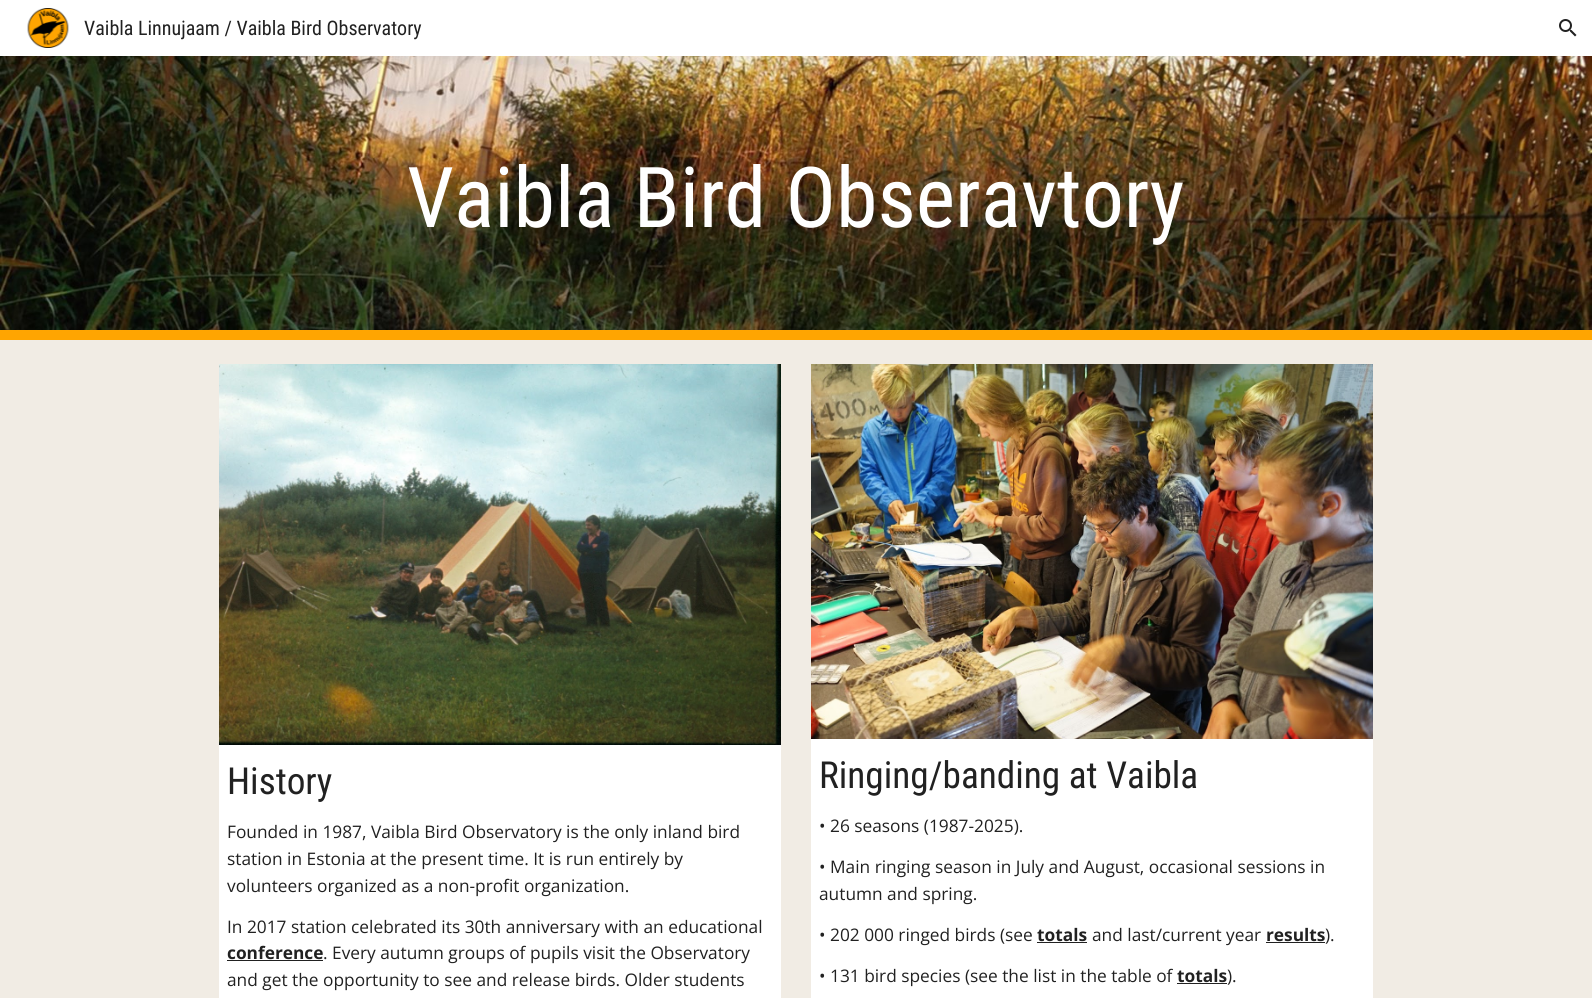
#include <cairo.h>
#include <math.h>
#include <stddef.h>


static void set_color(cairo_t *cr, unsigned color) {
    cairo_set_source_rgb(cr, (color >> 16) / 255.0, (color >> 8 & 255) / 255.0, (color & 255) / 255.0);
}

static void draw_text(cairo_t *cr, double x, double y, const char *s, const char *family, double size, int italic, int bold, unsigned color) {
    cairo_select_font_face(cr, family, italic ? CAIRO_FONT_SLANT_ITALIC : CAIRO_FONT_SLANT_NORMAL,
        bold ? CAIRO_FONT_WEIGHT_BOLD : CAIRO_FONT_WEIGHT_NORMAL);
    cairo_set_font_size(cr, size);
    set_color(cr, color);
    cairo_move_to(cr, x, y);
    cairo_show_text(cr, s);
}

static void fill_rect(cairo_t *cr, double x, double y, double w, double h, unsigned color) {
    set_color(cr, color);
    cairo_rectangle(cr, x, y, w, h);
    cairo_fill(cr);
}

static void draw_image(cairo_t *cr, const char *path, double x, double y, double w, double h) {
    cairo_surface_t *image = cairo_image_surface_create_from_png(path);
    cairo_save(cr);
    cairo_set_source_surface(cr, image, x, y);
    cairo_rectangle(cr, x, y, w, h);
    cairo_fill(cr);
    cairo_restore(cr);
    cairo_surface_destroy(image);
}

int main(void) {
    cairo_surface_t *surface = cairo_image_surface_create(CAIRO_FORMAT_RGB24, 1592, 998);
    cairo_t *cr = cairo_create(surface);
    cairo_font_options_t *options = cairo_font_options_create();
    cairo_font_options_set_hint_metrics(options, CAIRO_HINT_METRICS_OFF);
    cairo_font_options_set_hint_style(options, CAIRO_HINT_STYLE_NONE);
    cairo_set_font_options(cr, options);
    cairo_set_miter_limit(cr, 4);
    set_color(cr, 0xF1ECE4);
    cairo_paint(cr);
    fill_rect(cr, 0, 0, 1592, 56, 0xFFFFFF);
    draw_image(cr, "assets/img1.png", 27, 8, 42, 40);
    draw_text(cr, 84, 35, "Vaibla Linnujaam / Vaibla Bird Observatory", "Roboto Condensed", 20, 0, 0, 0x212121);
    draw_image(cr, "assets/img2.png", 1559, 19, 18, 18);
    draw_image(cr, "assets/img3.png", 0, 56, 1592, 274);
    fill_rect(cr, 0, 330, 1592, 10, 0xFFA501);
    draw_text(cr, 407, 227, "Vaibla Bird Obseravtory", "Roboto Condensed", 84, 0, 0, 0xFFFFFF);
    draw_image(cr, "assets/img4.png", 219, 364, 562, 381);
    fill_rect(cr, 219, 745, 562, 253, 0xFFFFFF);
    draw_text(cr, 227, 794, "History", "Roboto Condensed", 37.25, 0, 0, 0x212121);
    draw_text(cr, 227, 838, "Founded in 1987, Vaibla Bird Observatory is the only inland bird", "Open Sans", 17.3, 0, 0, 0x212121);
    draw_text(cr, 227, 865, "station in Estonia at the present time. It is run entirely by", "Open Sans", 17.3, 0, 0, 0x212121);
    draw_text(cr, 227, 892, "volunteers organized as a non-profit organization.", "Open Sans", 17.3, 0, 0, 0x212121);
    draw_text(cr, 227, 933, "In 2017 station celebrated its 30th anniversary with an educational", "Open Sans", 17.3, 0, 0, 0x212121);
    draw_text(cr, 227, 959, "conference", "Open Sans", 17.3, 0, 1, 0x212121);
    fill_rect(cr, 227, 960, 96, 1, 0x212121);
    draw_text(cr, 323, 959, ". Every autumn groups of pupils visit the Observatory", "Open Sans", 17.3, 0, 0, 0x212121);
    draw_text(cr, 227, 986, "and get the opportunity to see and release birds. Older students", "Open Sans", 17.3, 0, 0, 0x212121);
    draw_image(cr, "assets/img5.png", 811, 364, 562, 375);
    fill_rect(cr, 811, 739, 562, 259, 0xFFFFFF);
    draw_text(cr, 819, 788, "Ringing/banding at Vaibla", "Roboto Condensed", 37.25, 0, 0, 0x212121);
    draw_text(cr, 819, 832, "• 26 seasons (1987-2025).", "Open Sans", 17.3, 0, 0, 0x212121);
    draw_text(cr, 819, 873, "• Main ringing season in July and August, occasional sessions in", "Open Sans", 17.3, 0, 0, 0x212121);
    draw_text(cr, 819, 900, "autumn and spring.", "Open Sans", 17.3, 0, 0, 0x212121);
    draw_text(cr, 819, 941, "• 202 000 ringed birds (see", "Open Sans", 17.3, 0, 0, 0x212121);
    draw_text(cr, 1037, 941, "totals", "Open Sans", 17.3, 0, 1, 0x212121);
    fill_rect(cr, 1037, 942, 50, 1, 0x212121);
    draw_text(cr, 1092, 941, "and last/current year", "Open Sans", 17.3, 0, 0, 0x212121);
    draw_text(cr, 1266, 941, "results", "Open Sans", 17.3, 0, 1, 0x212121);
    fill_rect(cr, 1266, 942, 59, 1, 0x212121);
    draw_text(cr, 1325, 941, ").", "Open Sans", 17.3, 0, 0, 0x212121);
    draw_text(cr, 819, 982, "• 131 bird species (see the list in the table of", "Open Sans", 17.3, 0, 0, 0x212121);
    draw_text(cr, 1177, 982, "totals", "Open Sans", 17.3, 0, 1, 0x212121);
    fill_rect(cr, 1177, 983, 50, 1, 0x212121);
    draw_text(cr, 1227, 982, ").", "Open Sans", 17.3, 0, 0, 0x212121);
    cairo_surface_write_to_png(surface, "output.png");
    cairo_font_options_destroy(options);
    cairo_destroy(cr);
    cairo_surface_destroy(surface);
    return 0;
}
